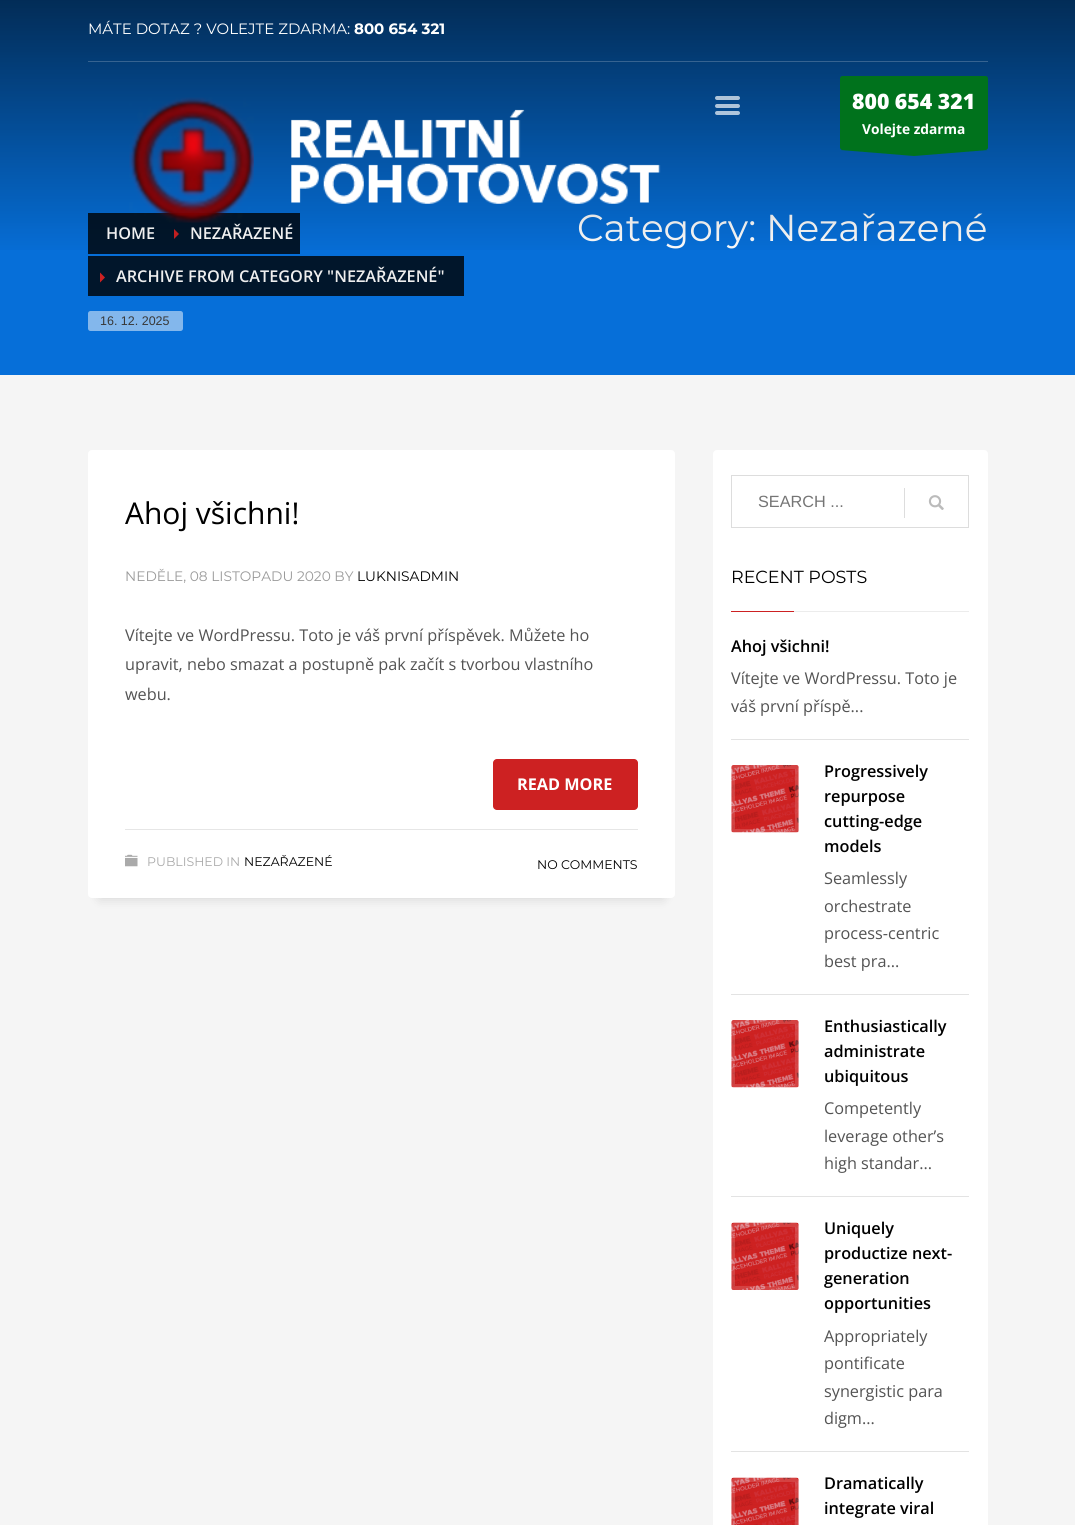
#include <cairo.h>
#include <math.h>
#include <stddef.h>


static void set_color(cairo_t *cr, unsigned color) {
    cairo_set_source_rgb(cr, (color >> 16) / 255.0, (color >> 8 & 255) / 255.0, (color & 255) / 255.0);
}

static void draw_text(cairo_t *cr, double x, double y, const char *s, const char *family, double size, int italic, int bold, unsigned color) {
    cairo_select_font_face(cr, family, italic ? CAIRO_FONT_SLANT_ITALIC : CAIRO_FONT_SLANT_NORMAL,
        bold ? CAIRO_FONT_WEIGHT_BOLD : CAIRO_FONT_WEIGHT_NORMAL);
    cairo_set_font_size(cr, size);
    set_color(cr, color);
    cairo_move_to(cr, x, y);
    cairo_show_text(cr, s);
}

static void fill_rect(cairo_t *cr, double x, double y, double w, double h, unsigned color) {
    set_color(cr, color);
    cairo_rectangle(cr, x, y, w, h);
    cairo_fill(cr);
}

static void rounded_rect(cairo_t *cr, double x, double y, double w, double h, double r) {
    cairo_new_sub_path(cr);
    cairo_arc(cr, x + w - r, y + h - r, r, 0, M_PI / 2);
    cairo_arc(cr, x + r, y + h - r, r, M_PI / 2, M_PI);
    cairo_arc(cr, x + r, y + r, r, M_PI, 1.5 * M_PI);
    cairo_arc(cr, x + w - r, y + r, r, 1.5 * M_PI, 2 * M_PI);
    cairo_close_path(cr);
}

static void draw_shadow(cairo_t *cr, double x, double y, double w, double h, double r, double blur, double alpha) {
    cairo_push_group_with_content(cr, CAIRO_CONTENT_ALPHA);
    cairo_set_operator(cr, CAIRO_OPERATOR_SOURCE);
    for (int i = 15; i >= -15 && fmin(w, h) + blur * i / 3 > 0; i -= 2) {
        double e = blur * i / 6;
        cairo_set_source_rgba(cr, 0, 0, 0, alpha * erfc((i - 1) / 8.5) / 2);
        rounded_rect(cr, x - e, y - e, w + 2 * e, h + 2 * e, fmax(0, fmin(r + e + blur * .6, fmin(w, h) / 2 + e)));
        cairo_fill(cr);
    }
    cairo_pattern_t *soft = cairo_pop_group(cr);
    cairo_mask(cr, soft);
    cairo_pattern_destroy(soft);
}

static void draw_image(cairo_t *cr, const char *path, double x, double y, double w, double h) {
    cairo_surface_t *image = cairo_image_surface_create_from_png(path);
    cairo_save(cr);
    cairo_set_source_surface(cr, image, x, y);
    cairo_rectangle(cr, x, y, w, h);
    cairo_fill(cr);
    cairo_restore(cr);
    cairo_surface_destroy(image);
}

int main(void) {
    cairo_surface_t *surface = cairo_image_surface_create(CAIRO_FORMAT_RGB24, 1075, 1525);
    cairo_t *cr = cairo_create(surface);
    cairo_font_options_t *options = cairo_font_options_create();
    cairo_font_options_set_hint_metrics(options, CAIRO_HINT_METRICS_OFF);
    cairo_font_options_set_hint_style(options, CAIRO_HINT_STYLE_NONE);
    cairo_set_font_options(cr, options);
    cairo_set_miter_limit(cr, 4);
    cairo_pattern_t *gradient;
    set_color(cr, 0xF5F5F5);
    cairo_paint(cr);
    fill_rect(cr, 0, 0, 1075, 375, 0x066FD9);
    fill_rect(cr, 88, 213, 212, 41, 0x01162B);
    draw_text(cr, 106, 239, "HOME", "Open Sans SemiBold", 16.25, 0, 0, 0xFFFFFF);
    set_color(cr, 0xCD2122);
    cairo_new_path(cr);
    cairo_move_to(cr, 174, 239);
    cairo_line_to(cr, 174, 229);
    cairo_line_to(cr, 179, 234);
    cairo_close_path(cr);
    cairo_fill(cr);
    draw_text(cr, 190, 239, "NEZAŘAZENÉ", "Open Sans SemiBold", 16.25, 0, 0, 0xFFFFFF);
    draw_text(cr, 577, 241, "Category: Nezařazené", "Montserrat", 37.5, 0, 0, 0xFFFFFF);
    gradient = cairo_pattern_create_linear(538, 0, 538, 259);
    cairo_pattern_add_color_stop_rgba(gradient, 0, 0, 0, 0, 0.6);
    cairo_pattern_add_color_stop_rgba(gradient, 1, 0, 0, 0, 0);
    cairo_set_source(cr, gradient);
    cairo_pattern_destroy(gradient);
    cairo_rectangle(cr, 0, 0, 1075, 250);
    cairo_fill(cr);
    draw_text(cr, 88, 34, "MÁTE DOTAZ ? VOLEJTE ZDARMA:", "Montserrat", 15, 0, 0, 0xFFFFFF);
    draw_text(cr, 354, 34, "800 654 321", "Montserrat", 15, 0, 1, 0xFFFFFF);
    fill_rect(cr, 88, 61, 900, 1, 0x366391);
    draw_image(cr, "assets/img1.png", 129, 97, 532, 126);
    set_color(cr, 0xAFC4D9);
    rounded_rect(cr, 715, 96, 25, 4, 2);
    cairo_fill(cr);
    set_color(cr, 0xAFC4DA);
    rounded_rect(cr, 715, 104, 25, 4, 2);
    cairo_fill(cr);
    set_color(cr, 0xAFC5DC);
    rounded_rect(cr, 715, 111, 25, 4, 2);
    cairo_fill(cr);
    set_color(cr, 0x00721C);
    rounded_rect(cr, 840, 76, 148, 74, 2.5);
    cairo_fill(cr);
    draw_text(cr, 852, 109, "800 654 321", "Open Sans ExtraBold", 21.25, 0, 0, 0xFFFFFF);
    draw_text(cr, 862, 134, "Volejte zdarma", "Open Sans", 13.75, 0, 1, 0xFFFFFF);
    set_color(cr, 0x00721C);
    cairo_set_fill_rule(cr, CAIRO_FILL_RULE_EVEN_ODD);
    cairo_new_path(cr);
    cairo_move_to(cr, 988, 150);
    cairo_line_to(cr, 914, 156);
    cairo_line_to(cr, 840, 150);
    cairo_close_path(cr);
    cairo_fill(cr);
    fill_rect(cr, 88, 256, 376, 40, 0x01162B);
    set_color(cr, 0xCD2122);
    cairo_set_fill_rule(cr, CAIRO_FILL_RULE_WINDING);
    cairo_new_path(cr);
    cairo_move_to(cr, 100, 282.5);
    cairo_line_to(cr, 100, 272.5);
    cairo_line_to(cr, 105, 277.5);
    cairo_close_path(cr);
    cairo_fill(cr);
    draw_text(cr, 116, 282, "ARCHIVE FROM CATEGORY \"NEZAŘAZENÉ\"", "Open Sans SemiBold", 16.25, 0, 0, 0xEEEEEE);
    set_color(cr, 0x83B7EC);
    rounded_rect(cr, 88, 311, 95, 20, 2.5);
    cairo_fill(cr);
    draw_text(cr, 100, 325, "16. 12. 2025", "Liberation Sans", 12.5, 0, 0, 0x383838);
    set_color(cr, 0x000000);
    draw_shadow(cr, 100, 475, 563, 423, 0, 6, 0.15);
    set_color(cr, 0xFFFFFF);
    rounded_rect(cr, 88, 450, 587, 448, 4);
    cairo_fill(cr);
    draw_text(cr, 125, 524, "Ahoj všichni!", "Open Sans", 30, 0, 0, 0x000000);
    draw_text(cr, 125, 581, "NEDĚLE, 08 LISTOPADU 2020 BY", "Montserrat", 13.75, 0, 0, 0x9A9A9A);
    draw_text(cr, 357, 581, "LUKNISADMIN", "Montserrat", 13.75, 0, 0, 0x000000);
    draw_text(cr, 125, 641, "Vítejte ve WordPressu. Toto je váš první příspěvek. Můžete ho", "Open Sans", 16.25, 0, 0, 0x535353);
    draw_text(cr, 125, 670, "upravit, nebo smazat a postupně pak začít s tvorbou vlastního", "Open Sans", 16.25, 0, 0, 0x535353);
    draw_text(cr, 125, 700, "webu.", "Open Sans", 16.25, 0, 0, 0x535353);
    fill_rect(cr, 125, 829, 513, 1, 0xE6E6E6);
    set_color(cr, 0xCD2122);
    rounded_rect(cr, 493, 759, 145, 51, 4);
    cairo_fill(cr);
    draw_text(cr, 517, 790, "READ MORE", "Open Sans", 16.25, 0, 1, 0xFFFFFF);
    draw_image(cr, "assets/img2.png", 125, 854, 13, 13);
    draw_text(cr, 147, 866, "PUBLISHED IN", "Montserrat", 12.5, 0, 0, 0xAAAAAA);
    draw_text(cr, 244, 866, "NEZAŘAZENÉ", "Montserrat", 12.5, 0, 0, 0x000000);
    draw_text(cr, 537, 869, "NO COMMENTS", "Montserrat", 12.5, 0, 0, 0x000000);
    set_color(cr, 0xFFFFFF);
    rounded_rect(cr, 713, 450, 275, 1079, 4);
    cairo_fill(cr);
    cairo_rectangle(cr, 731.5, 475.5, 237, 52);
    set_color(cr, 0xDDDDDD);
    cairo_set_line_width(cr, 1);
    cairo_stroke(cr);
    draw_text(cr, 758, 507, "SEARCH ...", "Liberation Sans", 16.25, 0, 0, 0x757575);
    fill_rect(cr, 904, 488, 1, 30, 0xDDDDDD);
    draw_image(cr, "assets/img3.png", 928, 495, 16, 15);
    draw_text(cr, 731, 583, "RECENT POSTS", "Montserrat", 17.5, 0, 0, 0x000000);
    fill_rect(cr, 731, 611, 63, 1, 0xCD2122);
    fill_rect(cr, 794, 611, 175, 1, 0xECECEC);
    fill_rect(cr, 731, 739, 238, 1, 0xE3E3E3);
    draw_text(cr, 731, 652, "Ahoj všichni!", "Open Sans SemiBold", 16.25, 0, 0, 0x000000);
    draw_text(cr, 731, 684, "Vítejte ve WordPressu. Toto je", "Open Sans", 16.25, 0, 0, 0x535353);
    draw_text(cr, 731, 712, "váš první příspě...", "Open Sans", 16.25, 0, 0, 0x535353);
    fill_rect(cr, 731, 994, 238, 1, 0xE3E3E3);
    draw_image(cr, "assets/img4.png", 731, 765, 68, 68);
    rounded_rect(cr, 733, 767, 64, 64, 2);
    cairo_set_source_rgba(cr, 1, 1, 1, 0.15);
    cairo_set_line_width(cr, 4);
    cairo_stroke(cr);
    draw_text(cr, 824, 777, "Progressively", "Open Sans SemiBold", 16.25, 0, 0, 0x000000);
    draw_text(cr, 824, 802, "repurpose", "Open Sans SemiBold", 16.25, 0, 0, 0x000000);
    draw_text(cr, 824, 827, "cutting-edge", "Open Sans SemiBold", 16.25, 0, 0, 0x000000);
    draw_text(cr, 824, 852, "models", "Open Sans SemiBold", 16.25, 0, 0, 0x000000);
    draw_text(cr, 824, 884, "Seamlessly", "Open Sans", 16.25, 0, 0, 0x535353);
    draw_text(cr, 824, 912, "orchestrate", "Open Sans", 16.25, 0, 0, 0x535353);
    draw_text(cr, 824, 939, "process-centric", "Open Sans", 16.25, 0, 0, 0x535353);
    draw_text(cr, 824, 967, "best pra...", "Open Sans", 16.25, 0, 0, 0x535353);
    fill_rect(cr, 731, 1196, 238, 1, 0xE3E3E3);
    draw_image(cr, "assets/img4.png", 731, 1020, 68, 68);
    rounded_rect(cr, 733, 1022, 64, 64, 2);
    cairo_set_source_rgba(cr, 1, 1, 1, 0.15);
    cairo_stroke(cr);
    draw_text(cr, 824, 1032, "Enthusiastically", "Open Sans SemiBold", 16.25, 0, 0, 0x000000);
    draw_text(cr, 824, 1057, "administrate", "Open Sans SemiBold", 16.25, 0, 0, 0x000000);
    draw_text(cr, 824, 1082, "ubiquitous", "Open Sans SemiBold", 16.25, 0, 0, 0x000000);
    draw_text(cr, 824, 1114, "Competently", "Open Sans", 16.25, 0, 0, 0x535353);
    draw_text(cr, 824, 1142, "leverage other’s", "Open Sans", 16.25, 0, 0, 0x535353);
    draw_text(cr, 824, 1169, "high standar...", "Open Sans", 16.25, 0, 0, 0x535353);
    fill_rect(cr, 731, 1451, 238, 1, 0xE3E3E3);
    draw_image(cr, "assets/img5.png", 731, 1222, 68, 68);
    rounded_rect(cr, 733, 1225, 64, 63, 2);
    cairo_set_source_rgba(cr, 1, 1, 1, 0.15);
    cairo_stroke(cr);
    draw_text(cr, 824, 1234, "Uniquely", "Open Sans SemiBold", 16.25, 0, 0, 0x000000);
    draw_text(cr, 824, 1259, "productize next-", "Open Sans SemiBold", 16.25, 0, 0, 0x000000);
    draw_text(cr, 824, 1284, "generation", "Open Sans SemiBold", 16.25, 0, 0, 0x000000);
    draw_text(cr, 824, 1309, "opportunities", "Open Sans SemiBold", 16.25, 0, 0, 0x000000);
    draw_text(cr, 824, 1342, "Appropriately", "Open Sans", 16.25, 0, 0, 0x535353);
    draw_text(cr, 824, 1369, "pontificate", "Open Sans", 16.25, 0, 0, 0x535353);
    draw_text(cr, 824, 1397, "synergistic para", "Open Sans", 16.25, 0, 0, 0x535353);
    draw_text(cr, 824, 1424, "digm...", "Open Sans", 16.25, 0, 0, 0x535353);
    draw_image(cr, "assets/img6.png", 731, 1477, 68, 48);
    rounded_rect(cr, 733, 1480, 64, 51, 2);
    cairo_set_source_rgba(cr, 1, 1, 1, 0.15);
    cairo_stroke(cr);
    draw_text(cr, 824, 1489, "Dramatically", "Open Sans SemiBold", 16.25, 0, 0, 0x000000);
    draw_text(cr, 824, 1514, "integrate viral", "Open Sans SemiBold", 16.25, 0, 0, 0x000000);
    cairo_surface_write_to_png(surface, "output.png");
    cairo_font_options_destroy(options);
    cairo_destroy(cr);
    cairo_surface_destroy(surface);
    return 0;
}
